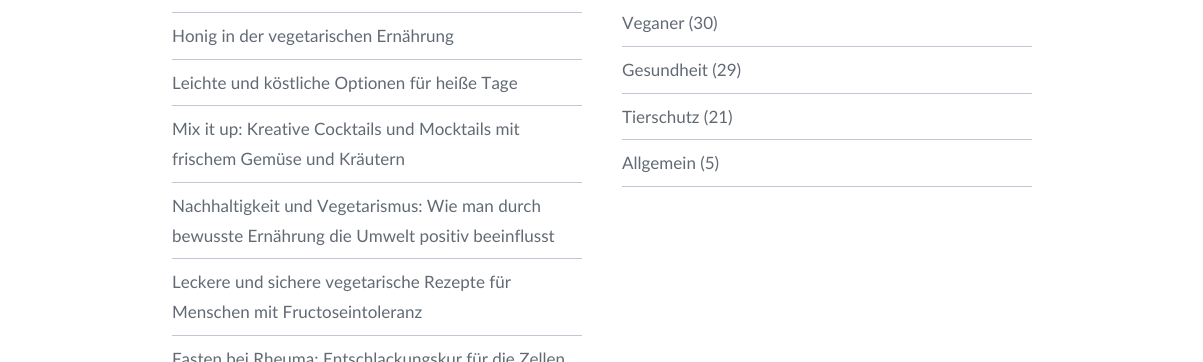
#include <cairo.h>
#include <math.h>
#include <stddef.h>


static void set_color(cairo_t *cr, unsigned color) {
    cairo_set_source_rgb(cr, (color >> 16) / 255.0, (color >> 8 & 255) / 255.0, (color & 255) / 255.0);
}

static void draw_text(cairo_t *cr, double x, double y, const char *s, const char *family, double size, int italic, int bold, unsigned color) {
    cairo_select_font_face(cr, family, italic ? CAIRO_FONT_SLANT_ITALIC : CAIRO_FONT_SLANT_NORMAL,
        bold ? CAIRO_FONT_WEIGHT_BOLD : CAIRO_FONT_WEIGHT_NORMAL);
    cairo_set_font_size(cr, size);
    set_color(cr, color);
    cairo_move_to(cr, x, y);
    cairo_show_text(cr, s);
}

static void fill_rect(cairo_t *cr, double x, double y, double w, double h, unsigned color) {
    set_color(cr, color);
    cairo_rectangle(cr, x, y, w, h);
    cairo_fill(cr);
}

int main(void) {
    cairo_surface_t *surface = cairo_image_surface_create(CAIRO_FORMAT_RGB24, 1203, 362);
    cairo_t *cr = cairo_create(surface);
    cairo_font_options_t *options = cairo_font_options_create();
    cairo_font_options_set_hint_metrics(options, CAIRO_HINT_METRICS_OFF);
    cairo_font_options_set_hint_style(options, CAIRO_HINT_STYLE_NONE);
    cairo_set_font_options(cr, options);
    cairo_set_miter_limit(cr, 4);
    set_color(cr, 0xFFFFFF);
    cairo_paint(cr);
    fill_rect(cr, 172, 12, 410, 1, 0xC0C9D3);
    fill_rect(cr, 172, 59, 410, 1, 0xC0C9D3);
    draw_text(cr, 172, 42, "Honig in der vegetarischen Ernährung", "Lato", 17, 0, 0, 0x616A74);
    fill_rect(cr, 172, 105, 410, 1, 0xC0C9D3);
    draw_text(cr, 172, 89, "Leichte und köstliche Optionen für heiße Tage", "Lato", 17, 0, 0, 0x616A74);
    fill_rect(cr, 172, 182, 410, 1, 0xC0C9D3);
    draw_text(cr, 172, 135, "Mix it up: Kreative Cocktails und Mocktails mit", "Lato", 17, 0, 0, 0x616A74);
    draw_text(cr, 172, 165, "frischem Gemüse und Kräutern", "Lato", 17, 0, 0, 0x616A74);
    fill_rect(cr, 172, 258, 410, 1, 0xC0C9D3);
    draw_text(cr, 172, 212, "Nachhaltigkeit und Vegetarismus: Wie man durch", "Lato", 17, 0, 0, 0x616A74);
    draw_text(cr, 172, 242, "bewusste Ernährung die Umwelt positiv beeinflusst", "Lato", 17, 0, 0, 0x616A74);
    fill_rect(cr, 172, 335, 410, 1, 0xC0C9D3);
    draw_text(cr, 172, 288, "Leckere und sichere vegetarische Rezepte für", "Lato", 17, 0, 0, 0x616A74);
    draw_text(cr, 172, 318, "Menschen mit Fructoseintoleranz", "Lato", 17, 0, 0, 0x616A74);
    draw_text(cr, 172, 365, "Fasten bei Rheuma: Entschlackungskur für die Zellen", "Lato", 17, 0, 0, 0x616A74);
    fill_rect(cr, 622, 46, 410, 1, 0xC0C9D3);
    draw_text(cr, 622, 29, "Veganer (30)", "Lato", 17, 0, 0, 0x616A74);
    fill_rect(cr, 622, 93, 410, 1, 0xC0C9D3);
    draw_text(cr, 622, 76, "Gesundheit (29)", "Lato", 17, 0, 0, 0x616A74);
    fill_rect(cr, 622, 139, 410, 1, 0xC0C9D3);
    draw_text(cr, 622, 123, "Tierschutz (21)", "Lato", 17, 0, 0, 0x616A74);
    fill_rect(cr, 622, 186, 410, 1, 0xC0C9D3);
    draw_text(cr, 622, 169, "Allgemein (5)", "Lato", 17, 0, 0, 0x616A74);
    cairo_surface_write_to_png(surface, "output.png");
    cairo_font_options_destroy(options);
    cairo_destroy(cr);
    cairo_surface_destroy(surface);
    return 0;
}
